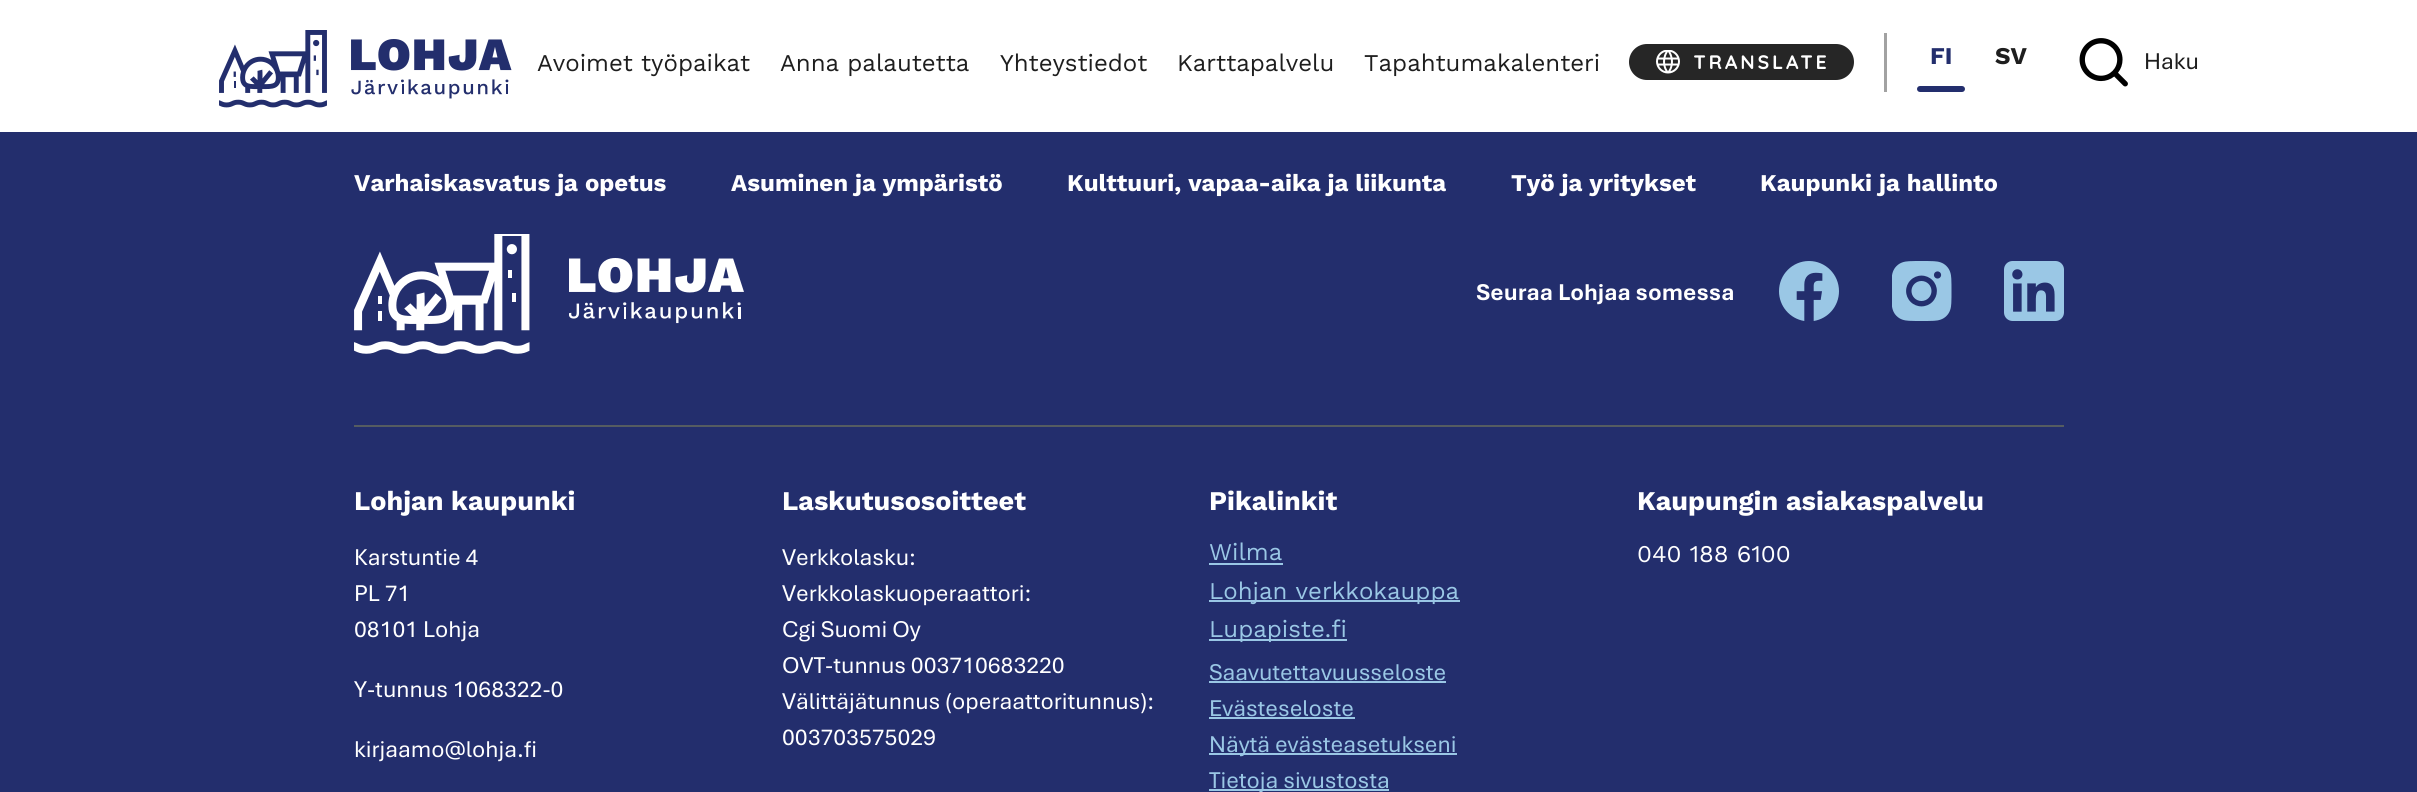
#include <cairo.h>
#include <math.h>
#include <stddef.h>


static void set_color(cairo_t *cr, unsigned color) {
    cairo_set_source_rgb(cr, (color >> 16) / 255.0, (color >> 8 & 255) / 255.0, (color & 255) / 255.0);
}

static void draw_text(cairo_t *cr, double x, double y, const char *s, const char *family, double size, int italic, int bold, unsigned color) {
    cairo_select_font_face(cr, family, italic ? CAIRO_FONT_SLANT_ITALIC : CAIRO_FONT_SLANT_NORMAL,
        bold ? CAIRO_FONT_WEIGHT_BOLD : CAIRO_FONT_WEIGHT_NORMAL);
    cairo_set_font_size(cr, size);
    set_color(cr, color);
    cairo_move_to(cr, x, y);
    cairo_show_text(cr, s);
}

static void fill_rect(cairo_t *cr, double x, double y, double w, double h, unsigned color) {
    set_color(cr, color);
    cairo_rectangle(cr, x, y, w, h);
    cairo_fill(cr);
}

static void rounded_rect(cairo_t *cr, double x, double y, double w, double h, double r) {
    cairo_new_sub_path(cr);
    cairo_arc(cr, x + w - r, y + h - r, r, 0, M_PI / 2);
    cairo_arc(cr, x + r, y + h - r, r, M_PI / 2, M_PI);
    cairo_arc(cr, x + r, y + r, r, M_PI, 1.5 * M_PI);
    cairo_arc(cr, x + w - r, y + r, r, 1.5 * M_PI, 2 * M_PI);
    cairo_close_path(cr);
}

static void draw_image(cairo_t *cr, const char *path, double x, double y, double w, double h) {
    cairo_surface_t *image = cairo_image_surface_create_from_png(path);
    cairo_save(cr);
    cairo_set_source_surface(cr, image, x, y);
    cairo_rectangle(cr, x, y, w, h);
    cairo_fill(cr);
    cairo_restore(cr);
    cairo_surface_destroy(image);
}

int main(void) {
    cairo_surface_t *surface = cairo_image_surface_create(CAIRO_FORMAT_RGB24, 2417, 792);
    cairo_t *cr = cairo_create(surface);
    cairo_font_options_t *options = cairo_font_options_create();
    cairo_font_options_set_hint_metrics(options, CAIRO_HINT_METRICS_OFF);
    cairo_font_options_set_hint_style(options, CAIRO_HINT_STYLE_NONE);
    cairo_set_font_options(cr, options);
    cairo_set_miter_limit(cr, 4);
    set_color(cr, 0x232E6D);
    cairo_paint(cr);
    fill_rect(cr, 0, 0, 2417, 132, 0xFFFFFF);
    draw_image(cr, "assets/img1.png", 219, 30, 108, 78);
    draw_image(cr, "assets/img2.png", 351, 39, 161, 60);
    draw_text(cr, 537, 71, "Avoimet työpaikat", "Work Sans", 24, 0, 0, 0x1E1E1E);
    draw_text(cr, 780, 71, "Anna palautetta", "Work Sans", 24, 0, 0, 0x1E1E1E);
    draw_text(cr, 1000, 71, "Yhteystiedot", "Work Sans", 24, 0, 0, 0x1E1E1E);
    draw_text(cr, 1177, 71, "Karttapalvelu", "Work Sans", 24, 0, 0, 0x1E1E1E);
    draw_text(cr, 1364, 71, "Tapahtumakalenteri", "Work Sans", 24, 0, 0, 0x1E1E1E);
    set_color(cr, 0x262626);
    rounded_rect(cr, 1629, 44, 225, 36, 18);
    cairo_fill(cr);
    draw_image(cr, "assets/img3.png", 1656, 50, 170, 24);
    fill_rect(cr, 1884, 33, 3, 59, 0xA2A2A2);
    draw_text(cr, 1930, 64, "FI", "Work Sans", 24, 0, 1, 0x232E6D);
    rounded_rect(cr, 1917, 86, 48, 6, 3);
    cairo_fill(cr);
    draw_text(cr, 1995, 64, "SV", "Work Sans", 24, 0, 1, 0x1E1E1E);
    draw_image(cr, "assets/img4.png", 2079, 38, 49, 49);
    draw_text(cr, 2144, 69, "Haku", "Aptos", 24, 0, 0, 0x1E1E1E);
    draw_text(cr, 354, 191, "Varhaiskasvatus ja opetus", "Work Sans", 24, 0, 1, 0xFFFFFF);
    draw_text(cr, 731, 191, "Asuminen ja ympäristö", "Work Sans", 24, 0, 1, 0xFFFFFF);
    draw_text(cr, 1067, 191, "Kulttuuri, vapaa-aika ja liikunta", "Work Sans", 24, 0, 1, 0xFFFFFF);
    draw_text(cr, 1511, 191, "Työ ja yritykset", "Work Sans", 24, 0, 1, 0xFFFFFF);
    draw_text(cr, 1760, 191, "Kaupunki ja hallinto", "Work Sans", 24, 0, 1, 0xFFFFFF);
    fill_rect(cr, 354, 425, 1710, 2, 0x555C61);
    draw_image(cr, "assets/img5.png", 354, 234, 176, 120);
    draw_image(cr, "assets/img6.png", 569, 258, 175, 66);
    draw_text(cr, 1476, 300, "Seuraa Lohjaa somessa", "Aptos", 24, 0, 1, 0xFFFFFF);
    draw_image(cr, "assets/img7.png", 1779, 261, 60, 60);
    draw_image(cr, "assets/img8.png", 1892, 261, 60, 60);
    draw_image(cr, "assets/img9.png", 2004, 261, 60, 60);
    draw_text(cr, 354, 510, "Lohjan kaupunki", "Work Sans", 27, 0, 1, 0xFFFFFF);
    draw_text(cr, 354, 565, "Karstuntie 4", "Aptos", 24, 0, 0, 0xFFFFFF);
    draw_text(cr, 354, 601, "PL 71", "Aptos", 24, 0, 0, 0xFFFFFF);
    draw_text(cr, 354, 637, "08101 Lohja", "Aptos", 24, 0, 0, 0xFFFFFF);
    draw_text(cr, 354, 697, "Y-tunnus 1068322-0", "Aptos", 24, 0, 0, 0xFFFFFF);
    draw_text(cr, 354, 757, "kirjaamo@lohja.fi", "Aptos", 24, 0, 0, 0xFFFFFF);
    draw_text(cr, 782, 510, "Laskutusosoitteet", "Work Sans", 27, 0, 1, 0xFFFFFF);
    draw_text(cr, 782, 565, "Verkkolasku:", "Aptos", 24, 0, 0, 0xFFFFFF);
    draw_text(cr, 782, 601, "Verkkolaskuoperaattori:", "Aptos", 24, 0, 0, 0xFFFFFF);
    draw_text(cr, 782, 637, "Cgi Suomi Oy", "Aptos", 24, 0, 0, 0xFFFFFF);
    draw_text(cr, 782, 673, "OVT-tunnus 003710683220", "Aptos", 24, 0, 0, 0xFFFFFF);
    draw_text(cr, 782, 709, "Välittäjätunnus (operaattoritunnus):", "Aptos", 24, 0, 0, 0xFFFFFF);
    draw_text(cr, 782, 745, "003703575029", "Aptos", 24, 0, 0, 0xFFFFFF);
    draw_text(cr, 1209, 510, "Pikalinkit", "Work Sans", 27, 0, 1, 0xFFFFFF);
    draw_text(cr, 1209, 560, "Wilma", "Work Sans", 24, 0, 0, 0x9AC7E5);
    fill_rect(cr, 1209, 563, 74, 2, 0x9AC7E5);
    fill_rect(cr, 1209, 600, 251, 2, 0x9AC7E5);
    draw_text(cr, 1209, 599, "Lohjan verkkokauppa", "Work Sans", 24, 0, 0, 0x9AC7E5);
    fill_rect(cr, 1209, 639, 138, 2, 0x9AC7E5);
    draw_text(cr, 1209, 637, "Lupapiste.fi", "Work Sans", 24, 0, 0, 0x9AC7E5);
    draw_text(cr, 1209, 680, "Saavutettavuusseloste", "Aptos", 24, 0, 0, 0x9AC7E5);
    fill_rect(cr, 1209, 681, 237, 2, 0x9AC7E5);
    draw_text(cr, 1209, 716, "Evästeseloste", "Aptos", 24, 0, 0, 0x9AC7E5);
    fill_rect(cr, 1209, 717, 146, 2, 0x9AC7E5);
    fill_rect(cr, 1209, 753, 248, 2, 0x9AC7E5);
    draw_text(cr, 1209, 752, "Näytä evästeasetukseni", "Aptos", 24, 0, 0, 0x9AC7E5);
    fill_rect(cr, 1209, 789, 180, 2, 0x9AC7E5);
    draw_text(cr, 1209, 788, "Tietoja sivustosta", "Aptos", 24, 0, 0, 0x9AC7E5);
    draw_text(cr, 1637, 510, "Kaupungin asiakaspalvelu", "Work Sans", 27, 0, 1, 0xFFFFFF);
    draw_text(cr, 1637, 562, "040 188 6100", "Work Sans", 24, 0, 0, 0xFFFFFF);
    cairo_surface_write_to_png(surface, "output.png");
    cairo_font_options_destroy(options);
    cairo_destroy(cr);
    cairo_surface_destroy(surface);
    return 0;
}
